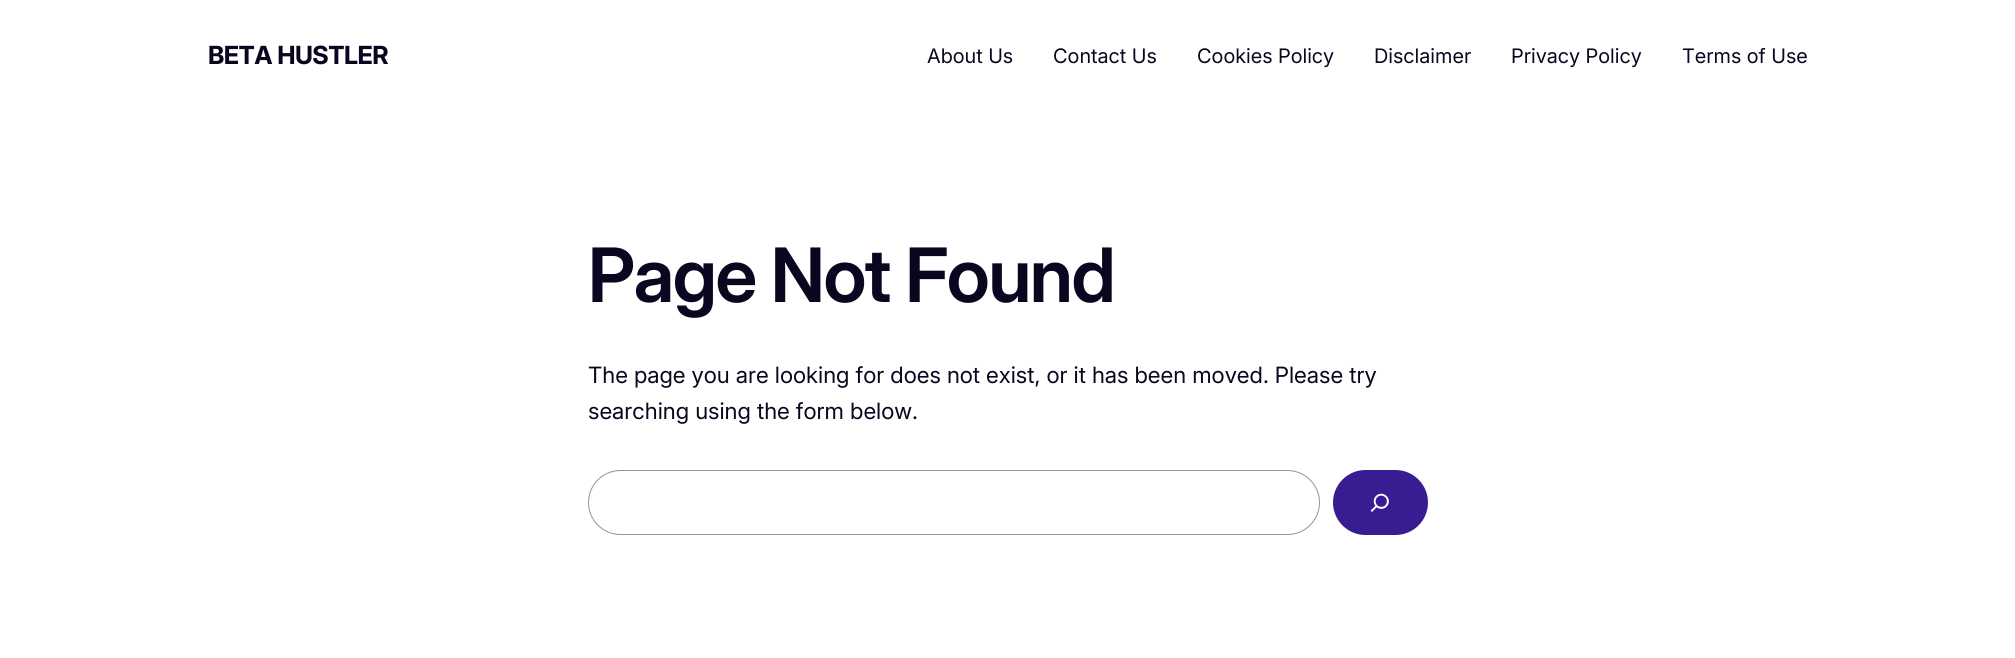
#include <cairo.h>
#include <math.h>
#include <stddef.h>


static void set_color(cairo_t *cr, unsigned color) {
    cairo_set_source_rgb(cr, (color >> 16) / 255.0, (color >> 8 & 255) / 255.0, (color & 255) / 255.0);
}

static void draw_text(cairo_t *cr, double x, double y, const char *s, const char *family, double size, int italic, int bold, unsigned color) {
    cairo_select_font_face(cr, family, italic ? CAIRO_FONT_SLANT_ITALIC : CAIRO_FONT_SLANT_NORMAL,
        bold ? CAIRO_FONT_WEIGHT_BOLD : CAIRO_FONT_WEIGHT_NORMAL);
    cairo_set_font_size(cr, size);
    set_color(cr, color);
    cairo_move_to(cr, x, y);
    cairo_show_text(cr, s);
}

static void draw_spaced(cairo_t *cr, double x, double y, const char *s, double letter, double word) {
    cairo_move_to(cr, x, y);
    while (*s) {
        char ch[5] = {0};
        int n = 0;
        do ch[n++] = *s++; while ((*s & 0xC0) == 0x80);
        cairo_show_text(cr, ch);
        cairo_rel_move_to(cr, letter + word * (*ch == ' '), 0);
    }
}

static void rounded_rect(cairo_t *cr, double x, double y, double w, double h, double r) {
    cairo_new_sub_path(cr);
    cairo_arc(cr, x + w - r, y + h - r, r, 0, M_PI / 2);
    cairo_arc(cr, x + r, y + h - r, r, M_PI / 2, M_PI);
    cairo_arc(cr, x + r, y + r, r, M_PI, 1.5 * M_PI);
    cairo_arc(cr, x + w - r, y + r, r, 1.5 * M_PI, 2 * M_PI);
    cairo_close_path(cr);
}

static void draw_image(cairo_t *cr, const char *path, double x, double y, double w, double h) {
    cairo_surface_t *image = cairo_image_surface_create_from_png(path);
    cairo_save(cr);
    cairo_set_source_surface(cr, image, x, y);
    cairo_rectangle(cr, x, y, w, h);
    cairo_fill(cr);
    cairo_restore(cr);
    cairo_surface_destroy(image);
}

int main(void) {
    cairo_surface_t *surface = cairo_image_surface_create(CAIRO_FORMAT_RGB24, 2015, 658);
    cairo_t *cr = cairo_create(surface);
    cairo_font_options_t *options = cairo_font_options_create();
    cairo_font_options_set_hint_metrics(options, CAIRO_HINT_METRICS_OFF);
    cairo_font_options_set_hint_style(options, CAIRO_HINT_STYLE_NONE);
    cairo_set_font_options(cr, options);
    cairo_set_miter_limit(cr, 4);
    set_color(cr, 0xFFFFFF);
    cairo_paint(cr);
    cairo_select_font_face(cr, "Inter", CAIRO_FONT_SLANT_NORMAL, CAIRO_FONT_WEIGHT_BOLD);
    cairo_set_font_size(cr, 25);
    set_color(cr, 0x0B0620);
    draw_spaced(cr, 208, 64, "BETA HUSTLER", -0.5, 0);
    draw_text(cr, 927, 63, "About Us", "Inter", 20, 0, 0, 0x0B0620);
    draw_text(cr, 1053, 63, "Contact Us", "Inter", 20, 0, 0, 0x0B0620);
    draw_text(cr, 1197, 63, "Cookies Policy", "Inter", 20, 0, 0, 0x0B0620);
    draw_text(cr, 1374, 63, "Disclaimer", "Inter", 20, 0, 0, 0x0B0620);
    draw_text(cr, 1511, 63, "Privacy Policy", "Inter", 20, 0, 0, 0x0B0620);
    draw_text(cr, 1682, 63, "Terms of Use", "Inter", 20, 0, 0, 0x0B0620);
    cairo_select_font_face(cr, "Inter SemiBold", CAIRO_FONT_SLANT_NORMAL, CAIRO_FONT_WEIGHT_NORMAL);
    cairo_set_font_size(cr, 75);
    draw_spaced(cr, 588, 302, "Page Not Found", -1.5, 0);
    draw_text(cr, 588, 383, "The page you are looking for does not exist, or it has been moved. Please try", "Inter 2", 22.5, 0, 0, 0x0B0620);
    draw_text(cr, 588, 419, "searching using the form below.", "Inter 2", 22.5, 0, 0, 0x0B0620);
    rounded_rect(cr, 588.5, 470.5, 731, 64, 32);
    set_color(cr, 0x949494);
    cairo_set_line_width(cr, 1);
    cairo_stroke(cr);
    set_color(cr, 0x381D92);
    rounded_rect(cr, 1333, 470, 95, 65, 32.5);
    cairo_fill(cr);
    draw_image(cr, "assets/img1.png", 1370, 493, 19, 19);
    cairo_surface_write_to_png(surface, "output.png");
    cairo_font_options_destroy(options);
    cairo_destroy(cr);
    cairo_surface_destroy(surface);
    return 0;
}
